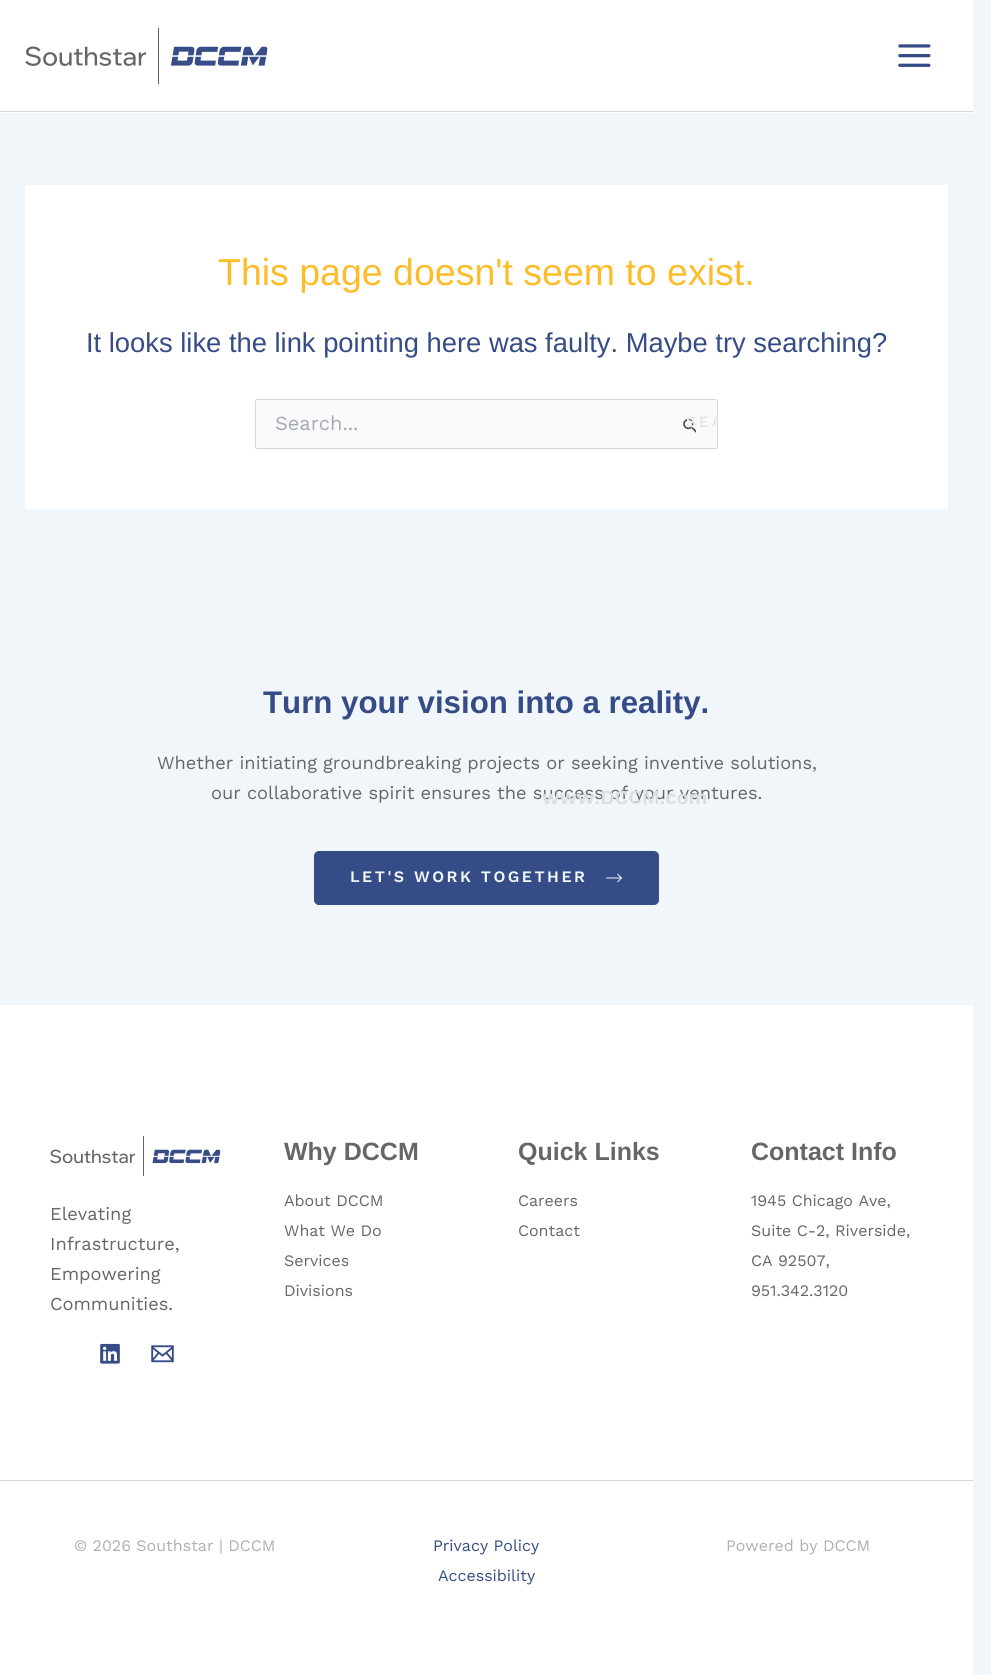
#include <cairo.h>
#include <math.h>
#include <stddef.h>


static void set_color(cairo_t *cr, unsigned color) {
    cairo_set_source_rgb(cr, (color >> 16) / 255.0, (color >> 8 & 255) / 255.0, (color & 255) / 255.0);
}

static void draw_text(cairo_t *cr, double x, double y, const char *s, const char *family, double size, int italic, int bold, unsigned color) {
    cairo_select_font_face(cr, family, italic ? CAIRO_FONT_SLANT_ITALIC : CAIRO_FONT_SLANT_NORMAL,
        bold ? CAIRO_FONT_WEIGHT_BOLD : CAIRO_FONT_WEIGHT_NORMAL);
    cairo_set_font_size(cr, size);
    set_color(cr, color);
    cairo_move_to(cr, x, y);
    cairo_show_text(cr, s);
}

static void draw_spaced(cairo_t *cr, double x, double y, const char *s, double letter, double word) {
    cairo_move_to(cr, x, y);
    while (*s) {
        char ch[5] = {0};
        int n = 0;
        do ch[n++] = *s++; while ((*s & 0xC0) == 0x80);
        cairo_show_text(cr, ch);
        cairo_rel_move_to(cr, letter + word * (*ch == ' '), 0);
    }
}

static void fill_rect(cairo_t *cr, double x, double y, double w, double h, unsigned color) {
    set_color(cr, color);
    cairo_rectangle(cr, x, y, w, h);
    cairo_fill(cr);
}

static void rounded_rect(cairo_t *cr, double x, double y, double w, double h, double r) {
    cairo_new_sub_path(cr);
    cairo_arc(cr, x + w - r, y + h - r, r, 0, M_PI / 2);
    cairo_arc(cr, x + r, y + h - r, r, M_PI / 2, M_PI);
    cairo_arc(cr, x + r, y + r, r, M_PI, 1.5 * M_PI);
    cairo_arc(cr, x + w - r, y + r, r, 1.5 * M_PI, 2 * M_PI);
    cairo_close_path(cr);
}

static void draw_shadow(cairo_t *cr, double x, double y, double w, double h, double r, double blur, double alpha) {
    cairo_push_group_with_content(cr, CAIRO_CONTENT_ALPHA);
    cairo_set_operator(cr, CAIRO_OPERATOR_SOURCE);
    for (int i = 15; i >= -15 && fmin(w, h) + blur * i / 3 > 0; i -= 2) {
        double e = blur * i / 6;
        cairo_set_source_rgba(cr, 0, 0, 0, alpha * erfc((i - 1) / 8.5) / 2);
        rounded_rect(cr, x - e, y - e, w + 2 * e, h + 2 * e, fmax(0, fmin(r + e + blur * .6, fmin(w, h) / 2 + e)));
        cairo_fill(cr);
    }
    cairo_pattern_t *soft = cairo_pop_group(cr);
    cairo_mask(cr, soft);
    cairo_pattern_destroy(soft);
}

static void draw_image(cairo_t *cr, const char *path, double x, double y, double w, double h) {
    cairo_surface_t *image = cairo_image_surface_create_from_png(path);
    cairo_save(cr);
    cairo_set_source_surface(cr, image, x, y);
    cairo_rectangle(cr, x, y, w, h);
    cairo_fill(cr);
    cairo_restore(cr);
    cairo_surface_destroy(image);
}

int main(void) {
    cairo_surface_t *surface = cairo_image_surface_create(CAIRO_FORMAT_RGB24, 991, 1675);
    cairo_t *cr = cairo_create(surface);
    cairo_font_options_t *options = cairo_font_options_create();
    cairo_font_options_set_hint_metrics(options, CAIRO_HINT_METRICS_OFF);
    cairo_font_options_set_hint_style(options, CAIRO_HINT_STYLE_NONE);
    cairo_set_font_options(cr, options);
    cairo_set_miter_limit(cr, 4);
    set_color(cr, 0xF1F6FA);
    cairo_paint(cr);
    fill_rect(cr, 0, 0, 973, 113, 0xFFFFFF);
    fill_rect(cr, 0, 111, 973, 1, 0xD5D8DE);
    draw_image(cr, "assets/img1.png", 25, 28, 243, 56);
    draw_image(cr, "assets/img2.png", 898, 44, 33, 23);
    fill_rect(cr, 25, 185, 923, 324, 0xFFFFFF);
    draw_text(cr, 218, 285, "This page doesn't seem to exist.", "Liberation Sans", 37.5, 0, 0, 0xFDBD2A);
    draw_text(cr, 86, 352, "It looks like the link pointing here was faulty. Maybe try searching?", "Liberation Sans", 27.35, 0, 0, 0x364C87);
    set_color(cr, 0x141414);
    draw_shadow(cr, 255, 400, 463, 50, 2.5, 1, 0.05);
    set_color(cr, 0xFAFAFA);
    rounded_rect(cr, 255.5, 399.5, 462, 49, 2);
    cairo_fill_preserve(cr);
    set_color(cr, 0xD5D8DE);
    cairo_set_line_width(cr, 1);
    cairo_stroke(cr);
    draw_text(cr, 275, 430, "Search...", "Work Sans", 20, 0, 0, 0xA4AAB5);
    draw_image(cr, "assets/img3.png", 683, 418, 13, 15);
    cairo_save(cr);
    rounded_rect(cr, 661, 399, 57, 47, 2.5);
    cairo_clip(cr);
    cairo_select_font_face(cr, "Work Sans SemiBold", CAIRO_FONT_SLANT_NORMAL, CAIRO_FONT_WEIGHT_NORMAL);
    cairo_set_font_size(cr, 16);
    set_color(cr, 0xE8E8E9);
    draw_spaced(cr, 686, 427, "SEA", 2.5, 0);
    cairo_restore(cr);
    draw_text(cr, 263, 713, "Turn your vision into a reality.", "Liberation Sans", 31.25, 0, 1, 0x364C87);
    draw_text(cr, 157, 769, "Whether initiating groundbreaking projects or seeking inventive solutions,", "Work Sans", 18.25, 0, 0, 0x656668);
    draw_text(cr, 211, 799, "our collaborative spirit ensures the success of your ventures.", "Work Sans", 18.25, 0, 0, 0x656668);
    set_color(cr, 0x364C87);
    rounded_rect(cr, 314.5, 851.5, 344, 53, 4.5);
    cairo_fill_preserve(cr);
    cairo_stroke(cr);
    cairo_select_font_face(cr, "Work Sans SemiBold", CAIRO_FONT_SLANT_NORMAL, CAIRO_FONT_WEIGHT_NORMAL);
    cairo_set_font_size(cr, 16);
    set_color(cr, 0xF1F6FA);
    draw_spaced(cr, 350, 882, "LET'S WORK TOGETHER", 2.5, 0);
    draw_image(cr, "assets/img4.png", 606, 873, 17, 10);
    fill_rect(cr, 0, 1005, 973, 475, 0xFFFFFF);
    draw_image(cr, "assets/img5.png", 50, 1136, 171, 40);
    draw_text(cr, 50, 1220, "Elevating", "Work Sans", 18.25, 0, 0, 0x656668);
    draw_text(cr, 50, 1250, "Infrastructure,", "Work Sans", 18.25, 0, 0, 0x656668);
    draw_text(cr, 50, 1280, "Empowering", "Work Sans", 18.25, 0, 0, 0x656668);
    draw_text(cr, 50, 1310, "Communities.", "Work Sans", 18.25, 0, 0, 0x656668);
    draw_image(cr, "assets/img6.png", 100, 1343, 20, 21);
    draw_image(cr, "assets/img7.png", 151, 1345, 23, 18);
    draw_text(cr, 284, 1160, "Why DCCM", "Liberation Sans", 25, 0, 1, 0x656668);
    draw_text(cr, 284, 1206, "About DCCM", "Work Sans", 16, 0, 0, 0x656668);
    draw_text(cr, 284, 1236, "What We Do", "Work Sans", 16, 0, 0, 0x656668);
    draw_text(cr, 284, 1266, "Services", "Work Sans", 16, 0, 0, 0x656668);
    draw_text(cr, 284, 1296, "Divisions", "Work Sans", 16, 0, 0, 0x656668);
    draw_text(cr, 518, 1160, "Quick Links", "Liberation Sans", 25, 0, 1, 0x656668);
    draw_text(cr, 518, 1206, "Careers", "Work Sans", 16, 0, 0, 0x656668);
    draw_text(cr, 518, 1236, "Contact", "Work Sans", 16, 0, 0, 0x656668);
    draw_text(cr, 751, 1160, "Contact Info", "Liberation Sans", 25, 0, 1, 0x656668);
    draw_text(cr, 751, 1206, "1945 Chicago Ave,", "Work Sans", 16, 0, 0, 0x656668);
    draw_text(cr, 751, 1236, "Suite C-2, Riverside,", "Work Sans", 16, 0, 0, 0x656668);
    draw_text(cr, 751, 1266, "CA 92507,", "Work Sans", 16, 0, 0, 0x656668);
    draw_text(cr, 751, 1296, "951.342.3120", "Work Sans", 16, 0, 0, 0x656668);
    fill_rect(cr, 0, 1481, 973, 194, 0xFFFFFF);
    fill_rect(cr, 0, 1480, 973, 1, 0xD5D8DE);
    draw_text(cr, 74, 1551, "© 2026 Southstar | DCCM", "Work Sans", 16, 0, 0, 0xAEB0B3);
    draw_text(cr, 433, 1551, "Privacy Policy", "Work Sans", 16, 0, 0, 0x364C87);
    draw_text(cr, 438, 1581, "Accessibility", "Work Sans", 16, 0, 0, 0x364C87);
    draw_text(cr, 726, 1551, "Powered by DCCM", "Work Sans", 16, 0, 0, 0xAEB0B3);
    draw_text(cr, 542, 804, "www.DCCM.com", "Work Sans SemiBold", 20, 0, 0, 0xDADEE2);
    cairo_surface_write_to_png(surface, "output.png");
    cairo_font_options_destroy(options);
    cairo_destroy(cr);
    cairo_surface_destroy(surface);
    return 0;
}
